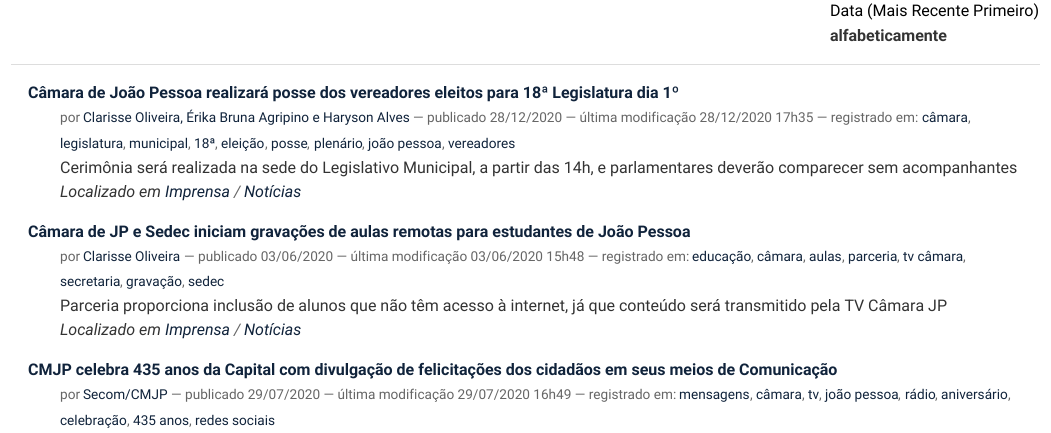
#include <cairo.h>
#include <math.h>
#include <stddef.h>


static void set_color(cairo_t *cr, unsigned color) {
    cairo_set_source_rgb(cr, (color >> 16) / 255.0, (color >> 8 & 255) / 255.0, (color & 255) / 255.0);
}

static void draw_text(cairo_t *cr, double x, double y, const char *s, const char *family, double size, int italic, int bold, unsigned color) {
    cairo_select_font_face(cr, family, italic ? CAIRO_FONT_SLANT_ITALIC : CAIRO_FONT_SLANT_NORMAL,
        bold ? CAIRO_FONT_WEIGHT_BOLD : CAIRO_FONT_WEIGHT_NORMAL);
    cairo_set_font_size(cr, size);
    set_color(cr, color);
    cairo_move_to(cr, x, y);
    cairo_show_text(cr, s);
}

static void fill_rect(cairo_t *cr, double x, double y, double w, double h, unsigned color) {
    set_color(cr, color);
    cairo_rectangle(cr, x, y, w, h);
    cairo_fill(cr);
}

int main(void) {
    cairo_surface_t *surface = cairo_image_surface_create(CAIRO_FORMAT_RGB24, 1051, 433);
    cairo_t *cr = cairo_create(surface);
    cairo_font_options_t *options = cairo_font_options_create();
    cairo_font_options_set_hint_metrics(options, CAIRO_HINT_METRICS_OFF);
    cairo_font_options_set_hint_style(options, CAIRO_HINT_STYLE_NONE);
    cairo_set_font_options(cr, options);
    cairo_set_miter_limit(cr, 4);
    set_color(cr, 0xFFFFFF);
    cairo_paint(cr);
    fill_rect(cr, 11, 64, 1029, 1, 0xDDDDDD);
    draw_text(cr, 830, 16, "Data (Mais Recente Primeiro)", "Roboto", 16, 0, 0, 0x000000);
    draw_text(cr, 830, 41, "alfabeticamente", "Roboto", 16, 0, 1, 0x333333);
    draw_text(cr, 28, 98, "Câmara de João Pessoa realizará posse dos vereadores eleitos para 18ª Legislatura dia 1º", "Roboto", 16, 0, 1, 0x10233B);
    draw_text(cr, 60, 122, "por", "Roboto", 13.6, 0, 0, 0x666666);
    draw_text(cr, 83, 122, "Clarisse Oliveira, Érika Bruna Agripino e Haryson Alves", "Roboto", 13.6, 0, 0, 0x10233B);
    draw_text(cr, 413, 122, "— publicado 28/12/2020 — última modificação 28/12/2020 17h35 — registrado em:", "Roboto", 13.6, 0, 0, 0x666666);
    draw_text(cr, 922, 122, "câmara", "Roboto", 13.6, 0, 0, 0x10233B);
    draw_text(cr, 968, 122, ",", "Roboto", 13.6, 0, 0, 0x666666);
    draw_text(cr, 60, 148, "legislatura", "Roboto", 13.6, 0, 0, 0x10233B);
    draw_text(cr, 123, 148, ",", "Roboto", 13.6, 0, 0, 0x666666);
    draw_text(cr, 129, 148, "municipal", "Roboto", 13.6, 0, 0, 0x10233B);
    draw_text(cr, 188, 148, ",", "Roboto", 13.6, 0, 0, 0x666666);
    draw_text(cr, 194, 148, "18ª", "Roboto", 13.6, 0, 0, 0x10233B);
    draw_text(cr, 215, 148, ",", "Roboto", 13.6, 0, 0, 0x666666);
    draw_text(cr, 221, 148, "eleição", "Roboto", 13.6, 0, 0, 0x10233B);
    draw_text(cr, 265, 148, ",", "Roboto", 13.6, 0, 0, 0x666666);
    draw_text(cr, 271, 148, "posse", "Roboto", 13.6, 0, 0, 0x10233B);
    draw_text(cr, 307, 148, ",", "Roboto", 13.6, 0, 0, 0x666666);
    draw_text(cr, 314, 148, "plenário", "Roboto", 13.6, 0, 0, 0x10233B);
    draw_text(cr, 362, 148, ",", "Roboto", 13.6, 0, 0, 0x666666);
    draw_text(cr, 368, 148, "joão pessoa", "Roboto", 13.6, 0, 0, 0x10233B);
    draw_text(cr, 442, 148, ",", "Roboto", 13.6, 0, 0, 0x666666);
    draw_text(cr, 448, 148, "vereadores", "Roboto", 13.6, 0, 0, 0x10233B);
    draw_text(cr, 60, 173, "Cerimônia será realizada na sede do Legislativo Municipal, a partir das 14h, e parlamentares deverão comparecer sem acompanhantes", "Roboto", 16, 0, 0, 0x333333);
    draw_text(cr, 60, 197, "Localizado em", "Roboto", 16, 1, 0, 0x333333);
    draw_text(cr, 165, 197, "Imprensa", "Roboto", 16, 1, 0, 0x10233B);
    draw_text(cr, 234, 197, "/", "Roboto", 16, 1, 0, 0x666666);
    draw_text(cr, 244, 197, "Notícias", "Roboto", 16, 1, 0, 0x10233B);
    draw_text(cr, 28, 237, "Câmara de JP e Sedec iniciam gravações de aulas remotas para estudantes de João Pessoa", "Roboto", 16, 0, 1, 0x10233B);
    draw_text(cr, 60, 261, "por", "Roboto", 13.6, 0, 0, 0x666666);
    draw_text(cr, 83, 261, "Clarisse Oliveira", "Roboto", 13.6, 0, 0, 0x10233B);
    draw_text(cr, 184, 261, "— publicado 03/06/2020 — última modificação 03/06/2020 15h48 — registrado em:", "Roboto", 13.6, 0, 0, 0x666666);
    draw_text(cr, 692, 261, "educação", "Roboto", 13.6, 0, 0, 0x10233B);
    draw_text(cr, 751, 261, ",", "Roboto", 13.6, 0, 0, 0x666666);
    draw_text(cr, 757, 261, "câmara", "Roboto", 13.6, 0, 0, 0x10233B);
    draw_text(cr, 803, 261, ",", "Roboto", 13.6, 0, 0, 0x666666);
    draw_text(cr, 809, 261, "aulas", "Roboto", 13.6, 0, 0, 0x10233B);
    draw_text(cr, 842, 261, ",", "Roboto", 13.6, 0, 0, 0x666666);
    draw_text(cr, 848, 261, "parceria", "Roboto", 13.6, 0, 0, 0x10233B);
    draw_text(cr, 897, 261, ",", "Roboto", 13.6, 0, 0, 0x666666);
    draw_text(cr, 903, 261, "tv câmara", "Roboto", 13.6, 0, 0, 0x10233B);
    draw_text(cr, 963, 261, ",", "Roboto", 13.6, 0, 0, 0x666666);
    draw_text(cr, 60, 286, "secretaria", "Roboto", 13.6, 0, 0, 0x10233B);
    draw_text(cr, 120, 286, ",", "Roboto", 13.6, 0, 0, 0x666666);
    draw_text(cr, 126, 286, "gravação", "Roboto", 13.6, 0, 0, 0x10233B);
    draw_text(cr, 182, 286, ",", "Roboto", 13.6, 0, 0, 0x666666);
    draw_text(cr, 188, 286, "sedec", "Roboto", 13.6, 0, 0, 0x10233B);
    draw_text(cr, 60, 311, "Parceria proporciona inclusão de alunos que não têm acesso à internet, já que conteúdo será transmitido pela TV Câmara JP", "Roboto", 16, 0, 0, 0x333333);
    draw_text(cr, 60, 335, "Localizado em", "Roboto", 16, 1, 0, 0x333333);
    draw_text(cr, 165, 335, "Imprensa", "Roboto", 16, 1, 0, 0x10233B);
    draw_text(cr, 234, 335, "/", "Roboto", 16, 1, 0, 0x666666);
    draw_text(cr, 244, 335, "Notícias", "Roboto", 16, 1, 0, 0x10233B);
    draw_text(cr, 28, 375, "CMJP celebra 435 anos da Capital com divulgação de felicitações dos cidadãos em seus meios de Comunicação", "Roboto", 16, 0, 1, 0x10233B);
    draw_text(cr, 60, 399, "por", "Roboto", 13.6, 0, 0, 0x666666);
    draw_text(cr, 83, 399, "Secom/CMJP", "Roboto", 13.6, 0, 0, 0x10233B);
    draw_text(cr, 171, 399, "— publicado 29/07/2020 — última modificação 29/07/2020 16h49 — registrado em:", "Roboto", 13.6, 0, 0, 0x666666);
    draw_text(cr, 679, 399, "mensagens", "Roboto", 13.6, 0, 0, 0x10233B);
    draw_text(cr, 750, 399, ",", "Roboto", 13.6, 0, 0, 0x666666);
    draw_text(cr, 756, 399, "câmara", "Roboto", 13.6, 0, 0, 0x10233B);
    draw_text(cr, 802, 399, ",", "Roboto", 13.6, 0, 0, 0x666666);
    draw_text(cr, 808, 399, "tv", "Roboto", 13.6, 0, 0, 0x10233B);
    draw_text(cr, 819, 399, ",", "Roboto", 13.6, 0, 0, 0x666666);
    draw_text(cr, 825, 399, "joão pessoa", "Roboto", 13.6, 0, 0, 0x10233B);
    draw_text(cr, 898, 399, ",", "Roboto", 13.6, 0, 0, 0x666666);
    draw_text(cr, 905, 399, "rádio", "Roboto", 13.6, 0, 0, 0x10233B);
    draw_text(cr, 935, 399, ",", "Roboto", 13.6, 0, 0, 0x666666);
    draw_text(cr, 941, 399, "aniversário", "Roboto", 13.6, 0, 0, 0x10233B);
    draw_text(cr, 1008, 399, ",", "Roboto", 13.6, 0, 0, 0x666666);
    draw_text(cr, 60, 425, "celebração", "Roboto", 13.6, 0, 0, 0x10233B);
    draw_text(cr, 127, 425, ",", "Roboto", 13.6, 0, 0, 0x666666);
    draw_text(cr, 133, 425, "435 anos", "Roboto", 13.6, 0, 0, 0x10233B);
    draw_text(cr, 189, 425, ",", "Roboto", 13.6, 0, 0, 0x666666);
    draw_text(cr, 195, 425, "redes sociais", "Roboto", 13.6, 0, 0, 0x10233B);
    cairo_surface_write_to_png(surface, "output.png");
    cairo_font_options_destroy(options);
    cairo_destroy(cr);
    cairo_surface_destroy(surface);
    return 0;
}
